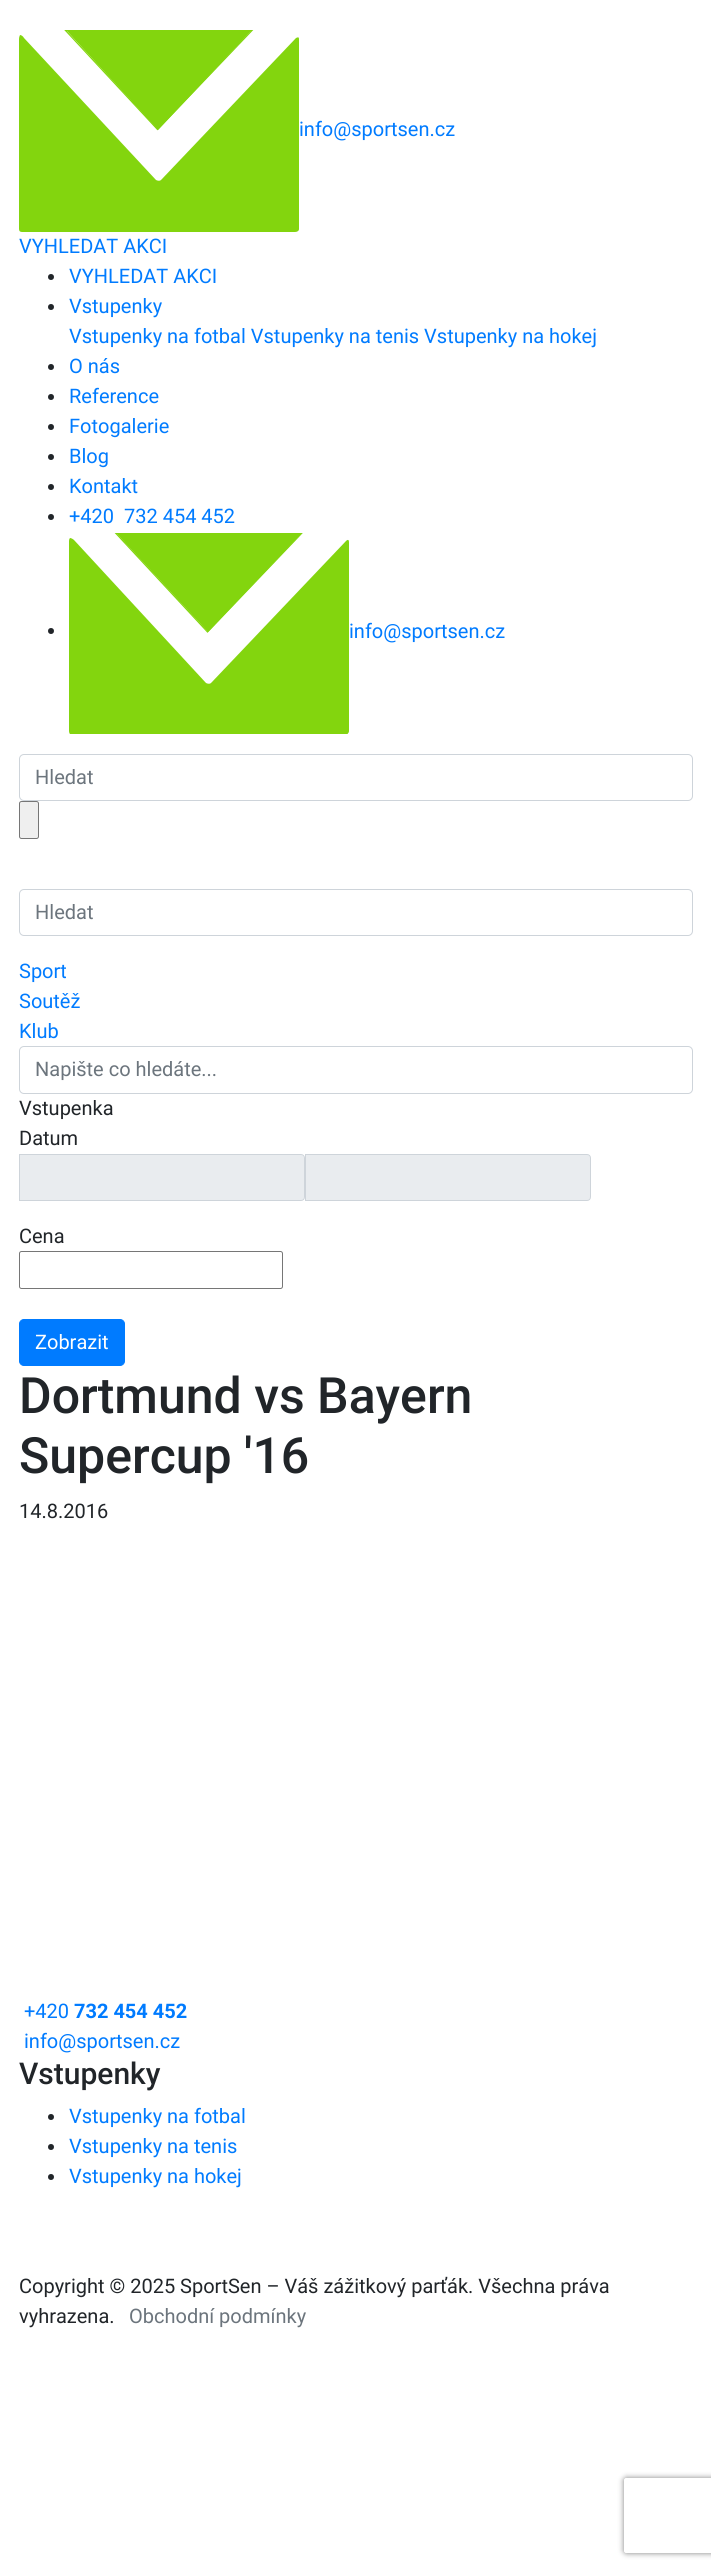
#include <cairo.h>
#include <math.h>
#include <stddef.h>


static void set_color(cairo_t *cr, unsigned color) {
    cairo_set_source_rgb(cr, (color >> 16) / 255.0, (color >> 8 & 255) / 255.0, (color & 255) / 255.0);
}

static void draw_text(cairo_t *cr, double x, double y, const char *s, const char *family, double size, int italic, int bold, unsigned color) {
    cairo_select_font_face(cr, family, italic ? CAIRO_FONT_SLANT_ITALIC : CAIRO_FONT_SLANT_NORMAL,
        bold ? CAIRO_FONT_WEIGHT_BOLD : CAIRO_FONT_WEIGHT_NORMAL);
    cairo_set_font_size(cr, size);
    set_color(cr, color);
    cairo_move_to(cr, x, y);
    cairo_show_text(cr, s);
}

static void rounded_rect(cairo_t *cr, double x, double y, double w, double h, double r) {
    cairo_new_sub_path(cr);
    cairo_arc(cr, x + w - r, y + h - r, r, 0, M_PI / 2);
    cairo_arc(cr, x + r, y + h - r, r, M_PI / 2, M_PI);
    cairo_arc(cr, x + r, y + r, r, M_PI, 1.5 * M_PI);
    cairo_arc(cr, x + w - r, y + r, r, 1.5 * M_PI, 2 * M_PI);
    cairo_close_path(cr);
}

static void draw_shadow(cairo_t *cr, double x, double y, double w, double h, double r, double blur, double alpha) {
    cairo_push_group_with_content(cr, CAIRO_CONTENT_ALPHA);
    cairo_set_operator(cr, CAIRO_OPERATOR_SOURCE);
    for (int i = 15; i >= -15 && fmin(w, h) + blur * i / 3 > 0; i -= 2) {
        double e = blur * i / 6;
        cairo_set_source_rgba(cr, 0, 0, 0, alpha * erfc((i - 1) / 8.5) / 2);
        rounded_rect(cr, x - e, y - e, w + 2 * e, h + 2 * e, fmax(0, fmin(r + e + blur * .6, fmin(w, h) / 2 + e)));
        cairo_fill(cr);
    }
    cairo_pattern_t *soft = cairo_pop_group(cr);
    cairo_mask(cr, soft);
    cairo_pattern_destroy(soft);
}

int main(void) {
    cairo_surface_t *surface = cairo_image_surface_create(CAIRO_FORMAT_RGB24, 711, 2570);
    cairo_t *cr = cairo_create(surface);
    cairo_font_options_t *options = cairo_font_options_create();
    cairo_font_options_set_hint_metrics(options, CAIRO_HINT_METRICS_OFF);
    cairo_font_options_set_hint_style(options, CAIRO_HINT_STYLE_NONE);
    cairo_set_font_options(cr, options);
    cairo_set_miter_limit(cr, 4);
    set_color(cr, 0xFFFFFF);
    cairo_paint(cr);
    draw_text(cr, 299, 136, "info@sportsen.cz", "Roboto", 20, 0, 0, 0x007BFF);
    set_color(cr, 0x83D50E);
    cairo_set_fill_rule(cr, CAIRO_FILL_RULE_EVEN_ODD);
    cairo_new_path(cr);
    cairo_move_to(cr, 161, 180);
    cairo_curve_to(cr, 160, 181, 158, 181, 156, 180);
    cairo_line_to(cr, 24, 38);
    cairo_curve_to(cr, 23, 36, 21, 35, 20, 35);
    cairo_curve_to(cr, 20, 35, 19, 37, 19, 39);
    cairo_line_to(cr, 19, 229);
    cairo_curve_to(cr, 19, 231, 20, 232, 22, 232);
    cairo_line_to(cr, 295, 232);
    cairo_curve_to(cr, 297, 232, 299, 231, 299, 229);
    cairo_line_to(cr, 299, 39);
    cairo_curve_to(cr, 299, 37, 298, 37, 296, 38);
    cairo_close_path(cr);
    cairo_fill(cr);
    cairo_new_path(cr);
    cairo_move_to(cr, 66, 30);
    cairo_line_to(cr, 158, 130);
    cairo_line_to(cr, 252, 30);
    cairo_close_path(cr);
    cairo_fill(cr);
    cairo_save(cr);
    cairo_set_fill_rule(cr, CAIRO_FILL_RULE_WINDING);
    cairo_rectangle(cr, 19, 30, 280, 203);
    cairo_clip(cr);
    cairo_new_path(cr);
    cairo_move_to(cr, 65.5, 30.5);
    cairo_line_to(cr, 157.5, 129.5);
    cairo_line_to(cr, 252, 30.5);
    cairo_close_path(cr);
    cairo_set_line_width(cr, 1.2);
    cairo_stroke(cr);
    cairo_restore(cr);
    draw_text(cr, 19, 253, "VYHLEDAT AKCI", "Roboto", 20, 0, 0, 0x007BFF);
    set_color(cr, 0x212529);
    cairo_new_path(cr);
    cairo_arc(cr, 51, 277, 3, 0, 2 * M_PI);
    cairo_fill(cr);
    draw_text(cr, 69, 283, "VYHLEDAT AKCI", "Roboto", 20, 0, 0, 0x007BFF);
    set_color(cr, 0x212529);
    cairo_new_path(cr);
    cairo_arc(cr, 51, 307, 3, 0, 2 * M_PI);
    cairo_fill(cr);
    draw_text(cr, 69, 313, "Vstupenky", "Roboto", 20, 0, 0, 0x007BFF);
    draw_text(cr, 69, 343, "Vstupenky na fotbal Vstupenky na tenis Vstupenky na hokej", "Roboto", 20, 0, 0, 0x007BFF);
    set_color(cr, 0x212529);
    cairo_new_path(cr);
    cairo_arc(cr, 51, 367, 3, 0, 2 * M_PI);
    cairo_fill(cr);
    draw_text(cr, 69, 373, "O nás", "Roboto", 20, 0, 0, 0x007BFF);
    set_color(cr, 0x212529);
    cairo_new_path(cr);
    cairo_arc(cr, 51, 397, 3, 0, 2 * M_PI);
    cairo_fill(cr);
    draw_text(cr, 69, 403, "Reference", "Roboto", 20, 0, 0, 0x007BFF);
    set_color(cr, 0x212529);
    cairo_new_path(cr);
    cairo_arc(cr, 51, 427, 3, 0, 2 * M_PI);
    cairo_fill(cr);
    draw_text(cr, 69, 433, "Fotogalerie", "Roboto", 20, 0, 0, 0x007BFF);
    set_color(cr, 0x212529);
    cairo_new_path(cr);
    cairo_arc(cr, 51, 457, 3, 0, 2 * M_PI);
    cairo_fill(cr);
    draw_text(cr, 69, 463, "Blog", "Roboto", 20, 0, 0, 0x007BFF);
    set_color(cr, 0x212529);
    cairo_new_path(cr);
    cairo_arc(cr, 51, 487, 3, 0, 2 * M_PI);
    cairo_fill(cr);
    draw_text(cr, 69, 493, "Kontakt", "Roboto", 20, 0, 0, 0x007BFF);
    set_color(cr, 0x212529);
    cairo_new_path(cr);
    cairo_arc(cr, 51, 517, 3, 0, 2 * M_PI);
    cairo_fill(cr);
    draw_text(cr, 69, 523, "+420", "Roboto", 20, 0, 0, 0x007BFF);
    draw_text(cr, 124, 523, "732 454 452", "Roboto", 20, 0, 0, 0x007BFF);
    set_color(cr, 0x212529);
    cairo_new_path(cr);
    cairo_arc(cr, 51, 631, 3, 0, 2 * M_PI);
    cairo_fill(cr);
    draw_text(cr, 349, 638, "info@sportsen.cz", "Roboto", 20, 0, 0, 0x007BFF);
    cairo_save(cr);
    cairo_set_fill_rule(cr, CAIRO_FILL_RULE_WINDING);
    cairo_rectangle(cr, 69, 533, 280, 201);
    cairo_clip(cr);
    set_color(cr, 0x83D50E);
    cairo_set_fill_rule(cr, CAIRO_FILL_RULE_EVEN_ODD);
    cairo_new_path(cr);
    cairo_move_to(cr, 211, 683);
    cairo_curve_to(cr, 210, 684, 208, 684, 206, 683);
    cairo_line_to(cr, 74, 540);
    cairo_curve_to(cr, 73, 539, 71, 538, 70, 538);
    cairo_curve_to(cr, 70, 538, 69, 539, 69, 541);
    cairo_line_to(cr, 69, 731);
    cairo_curve_to(cr, 69, 733, 70, 735, 72, 735);
    cairo_line_to(cr, 345, 735);
    cairo_curve_to(cr, 347, 735, 349, 733, 349, 731);
    cairo_line_to(cr, 349, 542);
    cairo_curve_to(cr, 349, 540, 348, 539, 346, 541);
    cairo_close_path(cr);
    cairo_fill(cr);
    cairo_restore(cr);
    set_color(cr, 0x83D50E);
    cairo_new_path(cr);
    cairo_move_to(cr, 116, 533);
    cairo_line_to(cr, 208, 632);
    cairo_line_to(cr, 302, 533);
    cairo_close_path(cr);
    cairo_fill(cr);
    cairo_save(cr);
    cairo_set_fill_rule(cr, CAIRO_FILL_RULE_WINDING);
    cairo_rectangle(cr, 69, 533, 280, 201);
    cairo_clip(cr);
    cairo_new_path(cr);
    cairo_move_to(cr, 115.5, 533);
    cairo_line_to(cr, 207.5, 632);
    cairo_line_to(cr, 302, 533);
    cairo_close_path(cr);
    cairo_set_line_width(cr, 1.2);
    cairo_stroke(cr);
    cairo_restore(cr);
    rounded_rect(cr, 19.5, 754.5, 673, 46, 4.5);
    set_color(cr, 0xCED4DA);
    cairo_set_line_width(cr, 1);
    cairo_stroke(cr);
    draw_text(cr, 35, 784, "Hledat", "Roboto", 20, 0, 0, 0x6C757D);
    set_color(cr, 0xEFEFEF);
    rounded_rect(cr, 19.5, 801.5, 19, 37, 2);
    cairo_fill_preserve(cr);
    set_color(cr, 0x767676);
    cairo_stroke(cr);
    rounded_rect(cr, 19.5, 889.5, 673, 46, 4.5);
    set_color(cr, 0xCED4DA);
    cairo_stroke(cr);
    draw_text(cr, 35, 919, "Hledat", "Roboto", 20, 0, 0, 0x6C757D);
    draw_text(cr, 19, 978, "Sport", "Roboto", 20, 0, 0, 0x007BFF);
    draw_text(cr, 19, 1008, "Soutěž", "Roboto", 20, 0, 0, 0x007BFF);
    draw_text(cr, 19, 1038, "Klub", "Roboto", 20, 0, 0, 0x007BFF);
    rounded_rect(cr, 19.5, 1046.5, 673, 47, 4.5);
    set_color(cr, 0xCED4DA);
    cairo_stroke(cr);
    draw_text(cr, 35, 1076, "Napište co hledáte...", "Roboto", 20, 0, 0, 0x6C757D);
    draw_text(cr, 19, 1115, "Vstupenka", "Roboto", 20, 0, 0, 0x212529);
    draw_text(cr, 19, 1145, "Datum", "Roboto", 20, 0, 0, 0x212529);
    set_color(cr, 0xE9ECEF);
    cairo_new_path(cr);
    cairo_move_to(cr, 20, 1155);
    cairo_line_to(cr, 301.5, 1155);
    cairo_curve_to(cr, 303, 1155, 304, 1156, 304, 1157.5);
    cairo_line_to(cr, 304, 1197.5);
    cairo_curve_to(cr, 304, 1199, 303, 1200, 301.5, 1200);
    cairo_line_to(cr, 20, 1200);
    cairo_close_path(cr);
    cairo_fill(cr);
    cairo_new_path(cr);
    cairo_move_to(cr, 19.5, 1154.5);
    cairo_line_to(cr, 301, 1154.5);
    cairo_curve_to(cr, 303, 1154.5, 304.5, 1156, 304.5, 1158);
    cairo_line_to(cr, 304.5, 1197);
    cairo_curve_to(cr, 304.5, 1199, 303, 1200.5, 301, 1200.5);
    cairo_line_to(cr, 19.5, 1200.5);
    cairo_close_path(cr);
    set_color(cr, 0xCED4DA);
    cairo_stroke(cr);
    set_color(cr, 0xE9ECEF);
    cairo_new_path(cr);
    cairo_move_to(cr, 306, 1155);
    cairo_line_to(cr, 587.5, 1155);
    cairo_curve_to(cr, 589, 1155, 590, 1156, 590, 1157.5);
    cairo_line_to(cr, 590, 1197.5);
    cairo_curve_to(cr, 590, 1199, 589, 1200, 587.5, 1200);
    cairo_line_to(cr, 306, 1200);
    cairo_close_path(cr);
    cairo_fill(cr);
    cairo_new_path(cr);
    cairo_move_to(cr, 305.5, 1154.5);
    cairo_line_to(cr, 587, 1154.5);
    cairo_curve_to(cr, 589, 1154.5, 590.5, 1156, 590.5, 1158);
    cairo_line_to(cr, 590.5, 1197);
    cairo_curve_to(cr, 590.5, 1199, 589, 1200.5, 587, 1200.5);
    cairo_line_to(cr, 305.5, 1200.5);
    cairo_close_path(cr);
    set_color(cr, 0xCED4DA);
    cairo_stroke(cr);
    draw_text(cr, 19, 1243, "Cena", "Roboto", 20, 0, 0, 0x212529);
    rounded_rect(cr, 19.5, 1251.5, 263, 37, 2);
    set_color(cr, 0x767676);
    cairo_stroke(cr);
    set_color(cr, 0x007BFF);
    rounded_rect(cr, 19.5, 1319.5, 105, 46, 4.5);
    cairo_fill_preserve(cr);
    cairo_stroke(cr);
    draw_text(cr, 35, 1349, "Zobrazit", "Roboto", 20, 0, 0, 0xFFFFFF);
    draw_text(cr, 19, 1413, "Dortmund vs Bayern", "Roboto Medium", 50, 0, 0, 0x212529);
    draw_text(cr, 19, 1473, "Supercup '16", "Roboto Medium", 50, 0, 0, 0x212529);
    draw_text(cr, 19, 1518, "14.8.2016", "Roboto", 20, 0, 0, 0x212529);
    draw_text(cr, 24, 2018, "+420", "Roboto", 20, 0, 0, 0x007BFF);
    draw_text(cr, 74, 2018, "732 454 452", "Roboto", 20, 0, 1, 0x007BFF);
    draw_text(cr, 24, 2048, "info@sportsen.cz", "Roboto", 20, 0, 0, 0x007BFF);
    draw_text(cr, 19, 2084, "Vstupenky", "Roboto Medium", 30, 0, 0, 0x212529);
    cairo_new_path(cr);
    cairo_arc(cr, 51, 2117, 3, 0, 2 * M_PI);
    cairo_fill(cr);
    draw_text(cr, 69, 2123, "Vstupenky na fotbal", "Roboto", 20, 0, 0, 0x007BFF);
    set_color(cr, 0x212529);
    cairo_new_path(cr);
    cairo_arc(cr, 51, 2147, 3, 0, 2 * M_PI);
    cairo_fill(cr);
    draw_text(cr, 69, 2153, "Vstupenky na tenis", "Roboto", 20, 0, 0, 0x007BFF);
    set_color(cr, 0x212529);
    cairo_new_path(cr);
    cairo_arc(cr, 51, 2177, 3, 0, 2 * M_PI);
    cairo_fill(cr);
    draw_text(cr, 69, 2183, "Vstupenky na hokej", "Roboto", 20, 0, 0, 0x007BFF);
    draw_text(cr, 19, 2293, "Copyright © 2025 SportSen – Váš zážitkový parťák. Všechna práva", "Roboto", 20, 0, 0, 0x212529);
    draw_text(cr, 19, 2323, "vyhrazena.", "Roboto", 20, 0, 0, 0x212529);
    draw_text(cr, 129, 2323, "Obchodní podmínky", "Roboto", 20, 0, 0, 0x6C757D);
    cairo_save(cr);
    cairo_new_path(cr);
    cairo_move_to(cr, 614, 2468);
    cairo_line_to(cr, 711, 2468);
    cairo_line_to(cr, 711, 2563);
    cairo_line_to(cr, 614, 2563);
    cairo_close_path(cr);
    cairo_move_to(cr, 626.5, 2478);
    cairo_line_to(cr, 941.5, 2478);
    cairo_curve_to(cr, 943, 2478, 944, 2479, 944, 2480.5);
    cairo_line_to(cr, 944, 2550.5);
    cairo_curve_to(cr, 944, 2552, 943, 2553, 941.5, 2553);
    cairo_line_to(cr, 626.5, 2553);
    cairo_curve_to(cr, 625, 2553, 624, 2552, 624, 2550.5);
    cairo_line_to(cr, 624, 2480.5);
    cairo_curve_to(cr, 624, 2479, 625, 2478, 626.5, 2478);
    cairo_close_path(cr);
    cairo_clip(cr);
    set_color(cr, 0x808080);
    draw_shadow(cr, 624, 2478, 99, 75, 2.5, 3, 1);
    cairo_restore(cr);
    cairo_surface_write_to_png(surface, "output.png");
    cairo_font_options_destroy(options);
    cairo_destroy(cr);
    cairo_surface_destroy(surface);
    return 0;
}
